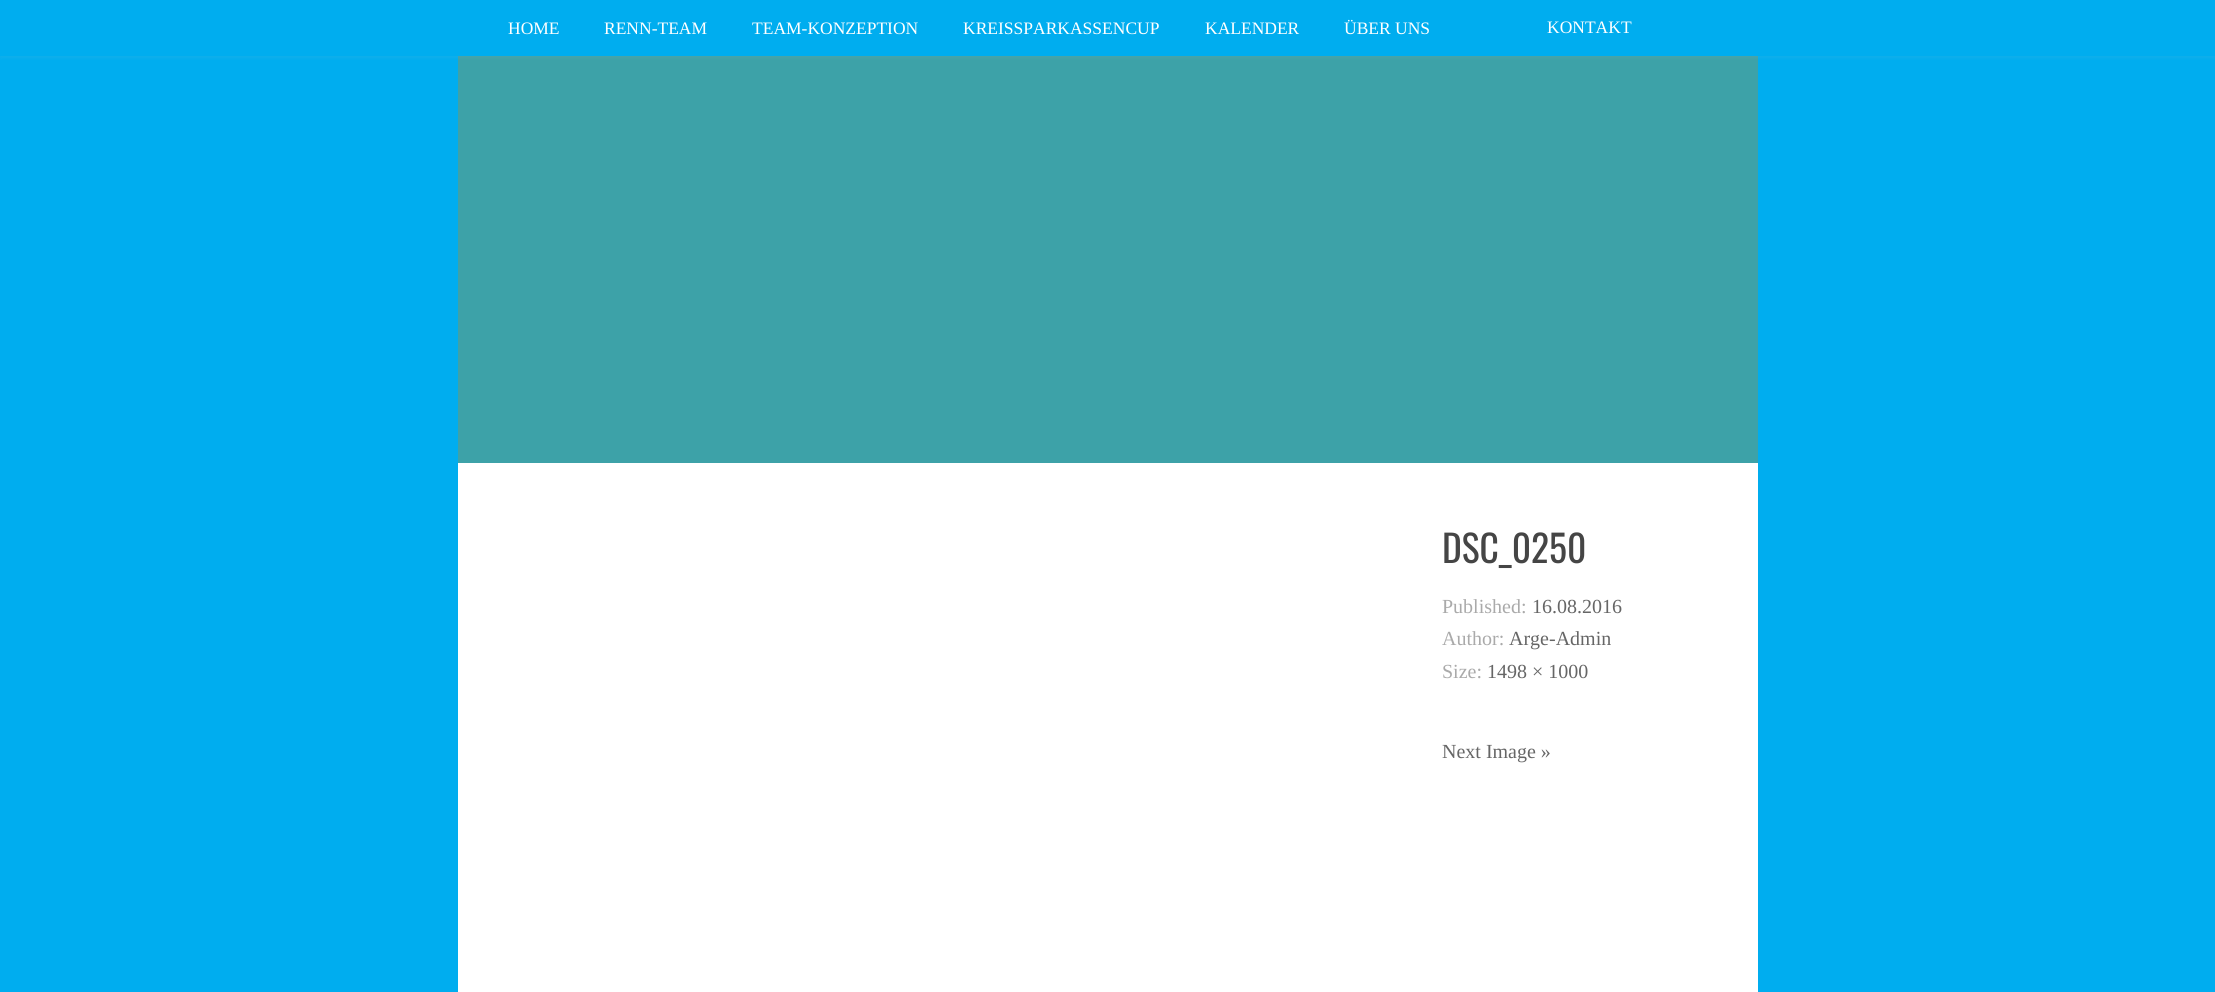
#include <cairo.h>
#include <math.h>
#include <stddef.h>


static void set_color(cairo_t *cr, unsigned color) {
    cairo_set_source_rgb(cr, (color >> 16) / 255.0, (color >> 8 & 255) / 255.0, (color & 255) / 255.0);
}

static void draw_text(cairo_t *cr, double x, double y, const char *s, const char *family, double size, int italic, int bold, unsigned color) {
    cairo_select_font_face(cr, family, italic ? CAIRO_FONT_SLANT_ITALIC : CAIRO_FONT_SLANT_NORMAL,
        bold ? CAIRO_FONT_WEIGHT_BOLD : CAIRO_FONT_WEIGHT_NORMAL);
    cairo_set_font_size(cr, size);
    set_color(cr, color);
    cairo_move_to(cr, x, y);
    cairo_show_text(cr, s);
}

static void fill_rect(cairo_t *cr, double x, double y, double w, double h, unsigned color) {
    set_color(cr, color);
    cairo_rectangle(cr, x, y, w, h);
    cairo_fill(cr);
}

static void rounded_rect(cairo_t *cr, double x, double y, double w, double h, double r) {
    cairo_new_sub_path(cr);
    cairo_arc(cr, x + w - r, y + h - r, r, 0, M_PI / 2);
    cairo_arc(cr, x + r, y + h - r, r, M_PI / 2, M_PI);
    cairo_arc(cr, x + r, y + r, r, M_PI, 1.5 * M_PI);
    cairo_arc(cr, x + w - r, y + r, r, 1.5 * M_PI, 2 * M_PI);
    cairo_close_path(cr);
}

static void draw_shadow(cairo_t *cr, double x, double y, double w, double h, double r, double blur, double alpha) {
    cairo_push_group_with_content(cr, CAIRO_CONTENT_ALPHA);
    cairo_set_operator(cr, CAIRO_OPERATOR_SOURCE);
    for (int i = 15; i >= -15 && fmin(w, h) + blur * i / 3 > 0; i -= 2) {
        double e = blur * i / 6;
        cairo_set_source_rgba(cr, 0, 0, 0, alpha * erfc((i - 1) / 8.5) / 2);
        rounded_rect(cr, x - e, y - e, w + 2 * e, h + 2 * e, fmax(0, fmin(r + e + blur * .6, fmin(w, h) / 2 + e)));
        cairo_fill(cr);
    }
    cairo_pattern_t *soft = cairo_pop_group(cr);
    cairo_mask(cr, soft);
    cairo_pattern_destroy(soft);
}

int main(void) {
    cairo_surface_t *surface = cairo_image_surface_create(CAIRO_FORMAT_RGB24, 2215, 992);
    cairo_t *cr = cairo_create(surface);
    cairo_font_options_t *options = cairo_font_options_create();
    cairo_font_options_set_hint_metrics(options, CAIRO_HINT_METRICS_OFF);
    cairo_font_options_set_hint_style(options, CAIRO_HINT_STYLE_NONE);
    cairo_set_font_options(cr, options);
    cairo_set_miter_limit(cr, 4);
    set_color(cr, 0x00ADEF);
    cairo_paint(cr);
    fill_rect(cr, 458, 56, 1300, 407, 0x3DA2A8);
    cairo_save(cr);
    cairo_rectangle(cr, 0, 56, 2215, 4);
    cairo_clip(cr);
    set_color(cr, 0xBEBEBE);
    draw_shadow(cr, 0, 1, 2215, 57, 0, 2.5, 0.1);
    cairo_restore(cr);
    draw_text(cr, 508, 34, "HOME", "Liberation Serif", 17.5, 0, 0, 0xFFFFFF);
    draw_text(cr, 604, 34, "RENN-TEAM", "Liberation Serif", 17.5, 0, 0, 0xFFFFFF);
    draw_text(cr, 752, 34, "TEAM-KONZEPTION", "Liberation Serif", 17.5, 0, 0, 0xFFFFFF);
    draw_text(cr, 963, 34, "KREISSPARKASSENCUP", "Liberation Serif", 17.5, 0, 0, 0xFFFFFF);
    draw_text(cr, 1205, 34, "KALENDER", "Liberation Serif", 17.5, 0, 0, 0xFFFFFF);
    draw_text(cr, 1344, 34, "ÜBER UNS", "Liberation Serif", 17.5, 0, 0, 0xFFFFFF);
    draw_text(cr, 1547, 33, "KONTAKT", "Liberation Serif", 17.5, 0, 0, 0xFFFFFF);
    fill_rect(cr, 458, 463, 1300, 529, 0xFFFFFF);
    draw_text(cr, 1442, 563, "DSC_0250", "Oswald", 37.5, 0, 0, 0x454545);
    draw_text(cr, 1442, 613, "Published:", "Liberation Serif", 20, 0, 0, 0xAAAAAA);
    draw_text(cr, 1532, 613, "16.08.2016", "Liberation Serif", 20, 0, 0, 0x666666);
    draw_text(cr, 1442, 645, "Author:", "Liberation Serif", 20, 0, 0, 0xAAAAAA);
    draw_text(cr, 1509, 645, "Arge-Admin", "Liberation Serif", 20, 0, 0, 0x666666);
    draw_text(cr, 1442, 678, "Size:", "Liberation Serif", 20, 0, 0, 0xAAAAAA);
    draw_text(cr, 1487, 678, "1498 × 1000", "Liberation Serif", 20, 0, 0, 0x666666);
    draw_text(cr, 1442, 758, "Next Image »", "Liberation Serif", 20, 0, 0, 0x666666);
    cairo_surface_write_to_png(surface, "output.png");
    cairo_font_options_destroy(options);
    cairo_destroy(cr);
    cairo_surface_destroy(surface);
    return 0;
}
